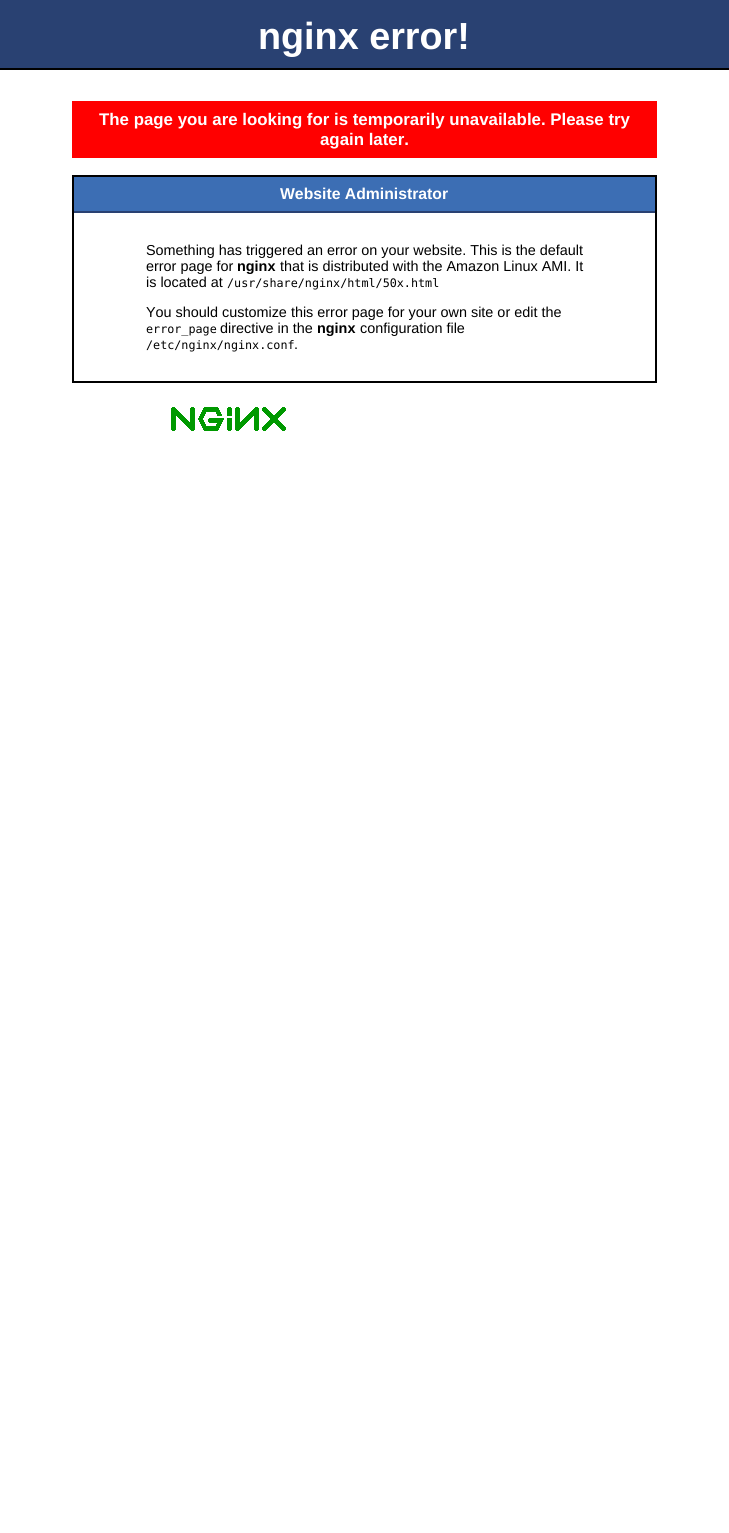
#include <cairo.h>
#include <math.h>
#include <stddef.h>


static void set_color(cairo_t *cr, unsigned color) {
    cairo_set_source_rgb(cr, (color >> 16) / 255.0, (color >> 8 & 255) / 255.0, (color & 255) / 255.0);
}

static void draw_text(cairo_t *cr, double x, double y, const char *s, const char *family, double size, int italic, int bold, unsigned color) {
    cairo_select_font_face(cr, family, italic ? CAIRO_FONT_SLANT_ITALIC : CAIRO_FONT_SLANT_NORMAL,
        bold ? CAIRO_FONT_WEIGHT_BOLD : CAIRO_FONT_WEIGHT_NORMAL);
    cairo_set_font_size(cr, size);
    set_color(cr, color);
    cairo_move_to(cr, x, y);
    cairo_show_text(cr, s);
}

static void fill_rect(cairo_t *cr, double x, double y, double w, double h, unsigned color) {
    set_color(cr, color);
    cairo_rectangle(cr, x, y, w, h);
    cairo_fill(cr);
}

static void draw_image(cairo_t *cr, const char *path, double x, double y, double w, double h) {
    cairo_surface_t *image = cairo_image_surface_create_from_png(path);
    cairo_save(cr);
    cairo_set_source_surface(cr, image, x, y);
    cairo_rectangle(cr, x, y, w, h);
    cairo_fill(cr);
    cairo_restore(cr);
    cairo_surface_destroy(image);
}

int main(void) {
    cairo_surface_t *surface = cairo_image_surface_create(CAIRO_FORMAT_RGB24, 729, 1533);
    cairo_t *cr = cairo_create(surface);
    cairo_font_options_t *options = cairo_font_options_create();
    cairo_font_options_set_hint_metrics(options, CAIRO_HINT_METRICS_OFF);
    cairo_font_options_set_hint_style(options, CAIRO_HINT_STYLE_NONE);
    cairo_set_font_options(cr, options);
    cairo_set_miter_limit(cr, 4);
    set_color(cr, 0xFFFFFF);
    cairo_paint(cr);
    fill_rect(cr, 0, 0, 729, 68, 0x294172);
    fill_rect(cr, 0, 68, 729, 2, 0x000000);
    draw_text(cr, 258, 49, "nginx error!", "Liberation Sans", 37.75, 0, 1, 0xFFFFFF);
    fill_rect(cr, 72, 101, 585, 57, 0xFF0000);
    draw_text(cr, 99, 125, "The page you are looking for is temporarily unavailable. Please try", "Liberation Sans", 16.85, 0, 1, 0xFFFFFF);
    draw_text(cr, 320, 145, "again later.", "Liberation Sans", 16.85, 0, 1, 0xFFFFFF);
    cairo_rectangle(cr, 73, 176, 583, 206);
    set_color(cr, 0x000000);
    cairo_stroke(cr);
    fill_rect(cr, 74, 177, 581, 34, 0x3C6EB4);
    fill_rect(cr, 74, 211, 581, 2, 0x294172);
    draw_text(cr, 280, 199, "Website Administrator", "Liberation Sans", 15.75, 0, 1, 0xFFFFFF);
    draw_text(cr, 146, 255, "Something has triggered an error on your website. This is the default", "Liberation Sans", 14.4, 0, 0, 0x000000);
    draw_text(cr, 146, 271, "error page for", "Liberation Sans", 14.4, 0, 0, 0x000000);
    draw_text(cr, 237, 271, "nginx", "Liberation Sans", 14.4, 0, 1, 0x000000);
    draw_text(cr, 280, 271, "that is distributed with the Amazon Linux AMI. It", "Liberation Sans", 14.4, 0, 0, 0x000000);
    draw_text(cr, 146, 287, "is located at", "Liberation Sans", 14.4, 0, 0, 0x000000);
    draw_text(cr, 227, 287, "/usr/share/nginx/html/50x.html", "DejaVu Sans Mono", 11.75, 0, 0, 0x000000);
    draw_text(cr, 146, 317, "You should customize this error page for your own site or edit the", "Liberation Sans", 14.4, 0, 0, 0x000000);
    draw_text(cr, 146, 333, "error_page", "DejaVu Sans Mono", 11.75, 0, 0, 0x000000);
    draw_text(cr, 220, 333, "directive in the", "Liberation Sans", 14.4, 0, 0, 0x000000);
    draw_text(cr, 317, 333, "nginx", "Liberation Sans", 14.4, 0, 1, 0x000000);
    draw_text(cr, 360, 333, "configuration file", "Liberation Sans", 14.4, 0, 0, 0x000000);
    draw_text(cr, 146, 349, "/etc/nginx/nginx.conf", "DejaVu Sans Mono", 11.75, 0, 0, 0x000000);
    draw_text(cr, 294, 349, ".", "Liberation Sans", 14.4, 0, 0, 0x000000);
    draw_image(cr, "assets/img1.png", 171, 407, 115, 24);
    cairo_surface_write_to_png(surface, "output.png");
    cairo_font_options_destroy(options);
    cairo_destroy(cr);
    cairo_surface_destroy(surface);
    return 0;
}
